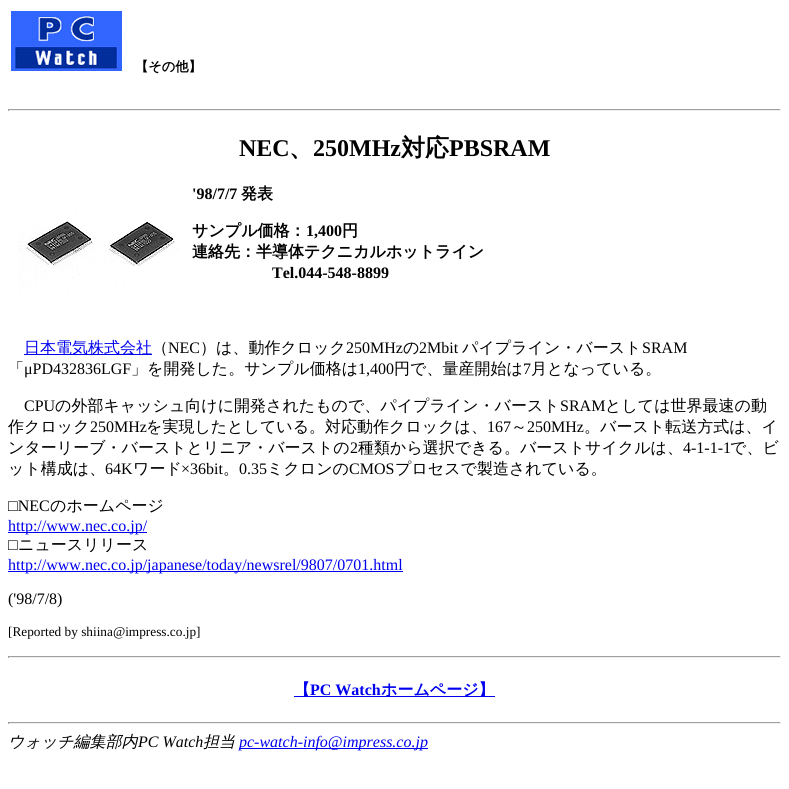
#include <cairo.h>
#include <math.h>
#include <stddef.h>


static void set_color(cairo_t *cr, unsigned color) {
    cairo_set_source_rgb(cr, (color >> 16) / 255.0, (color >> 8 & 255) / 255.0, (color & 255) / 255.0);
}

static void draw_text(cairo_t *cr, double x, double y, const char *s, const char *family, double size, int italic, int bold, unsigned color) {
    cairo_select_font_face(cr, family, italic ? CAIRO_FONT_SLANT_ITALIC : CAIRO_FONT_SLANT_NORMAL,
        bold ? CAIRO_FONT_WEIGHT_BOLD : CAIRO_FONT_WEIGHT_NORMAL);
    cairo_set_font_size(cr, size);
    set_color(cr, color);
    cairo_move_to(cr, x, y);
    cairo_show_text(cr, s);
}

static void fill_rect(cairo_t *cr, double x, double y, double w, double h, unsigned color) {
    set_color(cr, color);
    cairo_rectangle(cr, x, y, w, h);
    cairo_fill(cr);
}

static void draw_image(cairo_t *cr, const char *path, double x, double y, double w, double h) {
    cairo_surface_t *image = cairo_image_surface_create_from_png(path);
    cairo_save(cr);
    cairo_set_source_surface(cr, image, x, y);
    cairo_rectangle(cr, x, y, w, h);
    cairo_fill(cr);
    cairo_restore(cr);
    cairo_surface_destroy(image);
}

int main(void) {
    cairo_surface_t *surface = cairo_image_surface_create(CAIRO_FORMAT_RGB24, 789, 789);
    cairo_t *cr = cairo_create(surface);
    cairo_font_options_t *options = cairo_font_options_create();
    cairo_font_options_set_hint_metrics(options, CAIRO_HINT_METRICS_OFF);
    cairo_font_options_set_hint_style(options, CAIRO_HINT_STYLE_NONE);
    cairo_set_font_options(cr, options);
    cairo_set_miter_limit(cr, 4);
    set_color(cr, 0xFFFFFF);
    cairo_paint(cr);
    draw_image(cr, "assets/img1.png", 11, 11, 111, 60);
    draw_text(cr, 135, 71, "【その他】", "WenQuanYi Zen Hei", 13.25, 0, 1, 0x000000);
    fill_rect(cr, 8, 109, 773, 1, 0x9F9F9F);
    fill_rect(cr, 780, 109, 1, 2, 0xEEEEEE);
    fill_rect(cr, 8, 110, 773, 1, 0xEEEEEE);
    fill_rect(cr, 8, 109, 1, 2, 0x9F9F9F);
    draw_text(cr, 239, 156, "NEC", "Liberation Serif", 24, 0, 1, 0x000000);
    draw_text(cr, 289, 156, "、", "WenQuanYi Zen Hei", 24, 0, 1, 0x000000);
    draw_text(cr, 313, 156, "250MHz", "Liberation Serif", 24, 0, 1, 0x000000);
    draw_text(cr, 401, 156, "対応", "WenQuanYi Zen Hei", 24, 0, 1, 0x000000);
    draw_text(cr, 449, 156, "PBSRAM", "Liberation Serif", 24, 0, 1, 0x000000);
    draw_text(cr, 192, 199, "'98/7/7", "Liberation Serif", 16, 0, 1, 0x000000);
    draw_text(cr, 241, 199, "発表", "WenQuanYi Zen Hei", 16, 0, 1, 0x000000);
    draw_image(cr, "assets/img2.png", 18, 211, 164, 89);
    draw_text(cr, 192, 236, "サンプル価格：", "WenQuanYi Zen Hei", 16, 0, 1, 0x000000);
    draw_text(cr, 306, 236, "1,400", "Liberation Serif", 16, 0, 1, 0x000000);
    draw_text(cr, 342, 236, "円", "WenQuanYi Zen Hei", 16, 0, 1, 0x000000);
    draw_text(cr, 192, 257, "連絡先：半導体テクニカルホットライン", "WenQuanYi Zen Hei", 16, 0, 1, 0x000000);
    draw_text(cr, 272, 278, "Tel.044-548-8899", "Liberation Serif", 16, 0, 1, 0x000000);
    fill_rect(cr, 24, 354, 128, 1, 0x0000EE);
    draw_text(cr, 24, 353, "日本電気株式会社", "WenQuanYi Zen Hei Medium", 16, 0, 0, 0x0000EE);
    draw_text(cr, 152, 353, "（", "WenQuanYi Zen Hei Medium", 16, 0, 0, 0x000000);
    draw_text(cr, 168, 353, "NEC", "Liberation Serif", 16, 0, 0, 0x000000);
    draw_text(cr, 200, 353, "）は、動作クロック", "WenQuanYi Zen Hei Medium", 16, 0, 0, 0x000000);
    draw_text(cr, 346, 353, "250MHz", "Liberation Serif", 16, 0, 0, 0x000000);
    draw_text(cr, 403, 353, "の", "WenQuanYi Zen Hei Medium", 16, 0, 0, 0x000000);
    draw_text(cr, 419, 353, "2Mbit", "Liberation Serif", 16, 0, 0, 0x000000);
    draw_text(cr, 462, 353, "パイプライン・バースト", "WenQuanYi Zen Hei Medium", 16, 0, 0, 0x000000);
    draw_text(cr, 642, 353, "SRAM", "Liberation Serif", 16, 0, 0, 0x000000);
    draw_text(cr, 8, 374, "「", "WenQuanYi Zen Hei Medium", 16, 0, 0, 0x000000);
    draw_text(cr, 24, 374, "μPD432836LGF", "Liberation Serif", 16, 0, 0, 0x000000);
    draw_text(cr, 131, 374, "」を開発した。サンプル価格は", "WenQuanYi Zen Hei Medium", 16, 0, 0, 0x000000);
    draw_text(cr, 358, 374, "1,400", "Liberation Serif", 16, 0, 0, 0x000000);
    draw_text(cr, 394, 374, "円で、量産開始は", "WenQuanYi Zen Hei Medium", 16, 0, 0, 0x000000);
    draw_text(cr, 523, 374, "7", "Liberation Serif", 16, 0, 0, 0x000000);
    draw_text(cr, 531, 374, "月となっている。", "WenQuanYi Zen Hei Medium", 16, 0, 0, 0x000000);
    draw_text(cr, 24, 411, "CPU", "Liberation Serif", 16, 0, 0, 0x000000);
    draw_text(cr, 55, 411, "の外部キャッシュ向けに開発されたもので、パイプライン・バースト", "WenQuanYi Zen Hei Medium", 16, 0, 0, 0x000000);
    draw_text(cr, 560, 411, "SRAM", "Liberation Serif", 16, 0, 0, 0x000000);
    draw_text(cr, 605, 411, "としては世界最速の動", "WenQuanYi Zen Hei Medium", 16, 0, 0, 0x000000);
    draw_text(cr, 8, 432, "作クロック", "WenQuanYi Zen Hei Medium", 16, 0, 0, 0x000000);
    draw_text(cr, 90, 432, "250MHz", "Liberation Serif", 16, 0, 0, 0x000000);
    draw_text(cr, 146, 432, "を実現したとしている。対応動作クロックは、", "WenQuanYi Zen Hei Medium", 16, 0, 0, 0x000000);
    draw_text(cr, 487, 432, "167", "Liberation Serif", 16, 0, 0, 0x000000);
    draw_text(cr, 511, 432, "～", "WenQuanYi Zen Hei Medium", 16, 0, 0, 0x000000);
    draw_text(cr, 527, 432, "250MHz", "Liberation Serif", 16, 0, 0, 0x000000);
    draw_text(cr, 584, 432, "。バースト転送方式は、イ", "WenQuanYi Zen Hei Medium", 16, 0, 0, 0x000000);
    draw_text(cr, 8, 453, "ンターリーブ・バーストとリニア・バーストの", "WenQuanYi Zen Hei Medium", 16, 0, 0, 0x000000);
    draw_text(cr, 350, 453, "2", "Liberation Serif", 16, 0, 0, 0x000000);
    draw_text(cr, 358, 453, "種類から選択できる。バーストサイクルは、", "WenQuanYi Zen Hei Medium", 16, 0, 0, 0x000000);
    draw_text(cr, 683, 453, "4-1-1-1", "Liberation Serif", 16, 0, 0, 0x000000);
    draw_text(cr, 730, 453, "で、ビ", "WenQuanYi Zen Hei Medium", 16, 0, 0, 0x000000);
    draw_text(cr, 8, 474, "ット構成は、", "WenQuanYi Zen Hei Medium", 16, 0, 0, 0x000000);
    draw_text(cr, 105, 474, "64K", "Liberation Serif", 16, 0, 0, 0x000000);
    draw_text(cr, 133, 474, "ワード", "WenQuanYi Zen Hei Medium", 16, 0, 0, 0x000000);
    draw_text(cr, 181, 474, "×36bit", "Liberation Serif", 16, 0, 0, 0x000000);
    draw_text(cr, 223, 474, "。", "WenQuanYi Zen Hei Medium", 16, 0, 0, 0x000000);
    draw_text(cr, 239, 474, "0.35", "Liberation Serif", 16, 0, 0, 0x000000);
    draw_text(cr, 267, 474, "ミクロンの", "WenQuanYi Zen Hei Medium", 16, 0, 0, 0x000000);
    draw_text(cr, 349, 474, "CMOS", "Liberation Serif", 16, 0, 0, 0x000000);
    draw_text(cr, 395, 474, "プロセスで製造されている。", "WenQuanYi Zen Hei Medium", 16, 0, 0, 0x000000);
    draw_text(cr, 8, 511, "□NEC", "Liberation Serif", 16, 0, 0, 0x000000);
    draw_text(cr, 50, 511, "のホームページ", "WenQuanYi Zen Hei Medium", 16, 0, 0, 0x000000);
    fill_rect(cr, 8, 532, 139, 1, 0x0000EE);
    draw_text(cr, 8, 531, "http://www.nec.co.jp/", "Liberation Serif", 16, 0, 0, 0x0000EE);
    draw_text(cr, 8, 550, "□", "Liberation Serif", 16, 0, 0, 0x000000);
    draw_text(cr, 18, 550, "ニュースリリース", "WenQuanYi Zen Hei Medium", 16, 0, 0, 0x000000);
    fill_rect(cr, 8, 571, 395, 1, 0x0000EE);
    draw_text(cr, 8, 570, "http://www.nec.co.jp/japanese/today/newsrel/9807/0701.html", "Liberation Serif", 16, 0, 0, 0x0000EE);
    draw_text(cr, 8, 604, "('98/7/8)", "Liberation Serif", 16, 0, 0, 0x000000);
    draw_text(cr, 8, 636, "[Reported by shiina@impress.co.jp]", "Liberation Serif", 13.3, 0, 0, 0x000000);
    fill_rect(cr, 8, 656, 773, 1, 0x9F9F9F);
    fill_rect(cr, 780, 656, 1, 2, 0xEEEEEE);
    fill_rect(cr, 8, 657, 773, 1, 0xEEEEEE);
    fill_rect(cr, 8, 656, 1, 2, 0x9F9F9F);
    fill_rect(cr, 294, 696, 201, 1, 0x0000EE);
    draw_text(cr, 294, 695, "【", "WenQuanYi Zen Hei", 16, 0, 1, 0x0000EE);
    draw_text(cr, 310, 695, "PC Watch", "Liberation Serif", 16, 0, 1, 0x0000EE);
    draw_text(cr, 381, 695, "ホームページ】", "WenQuanYi Zen Hei", 16, 0, 1, 0x0000EE);
    fill_rect(cr, 8, 722, 773, 1, 0x9F9F9F);
    fill_rect(cr, 780, 722, 1, 2, 0xEEEEEE);
    fill_rect(cr, 8, 723, 773, 1, 0xEEEEEE);
    fill_rect(cr, 8, 722, 1, 2, 0x9F9F9F);
    draw_text(cr, 8, 747, "ウォッチ編集部内", "WenQuanYi Zen Hei Medium", 16, 1, 0, 0x000000);
    draw_text(cr, 138, 747, "PC Watch", "Liberation Serif", 16, 1, 0, 0x000000);
    draw_text(cr, 203, 747, "担当", "WenQuanYi Zen Hei Medium", 16, 1, 0, 0x000000);
    fill_rect(cr, 239, 748, 189, 1, 0x0000EE);
    draw_text(cr, 239, 747, "pc-watch-info@impress.co.jp", "Liberation Serif", 16, 1, 0, 0x0000EE);
    cairo_surface_write_to_png(surface, "output.png");
    cairo_font_options_destroy(options);
    cairo_destroy(cr);
    cairo_surface_destroy(surface);
    return 0;
}
